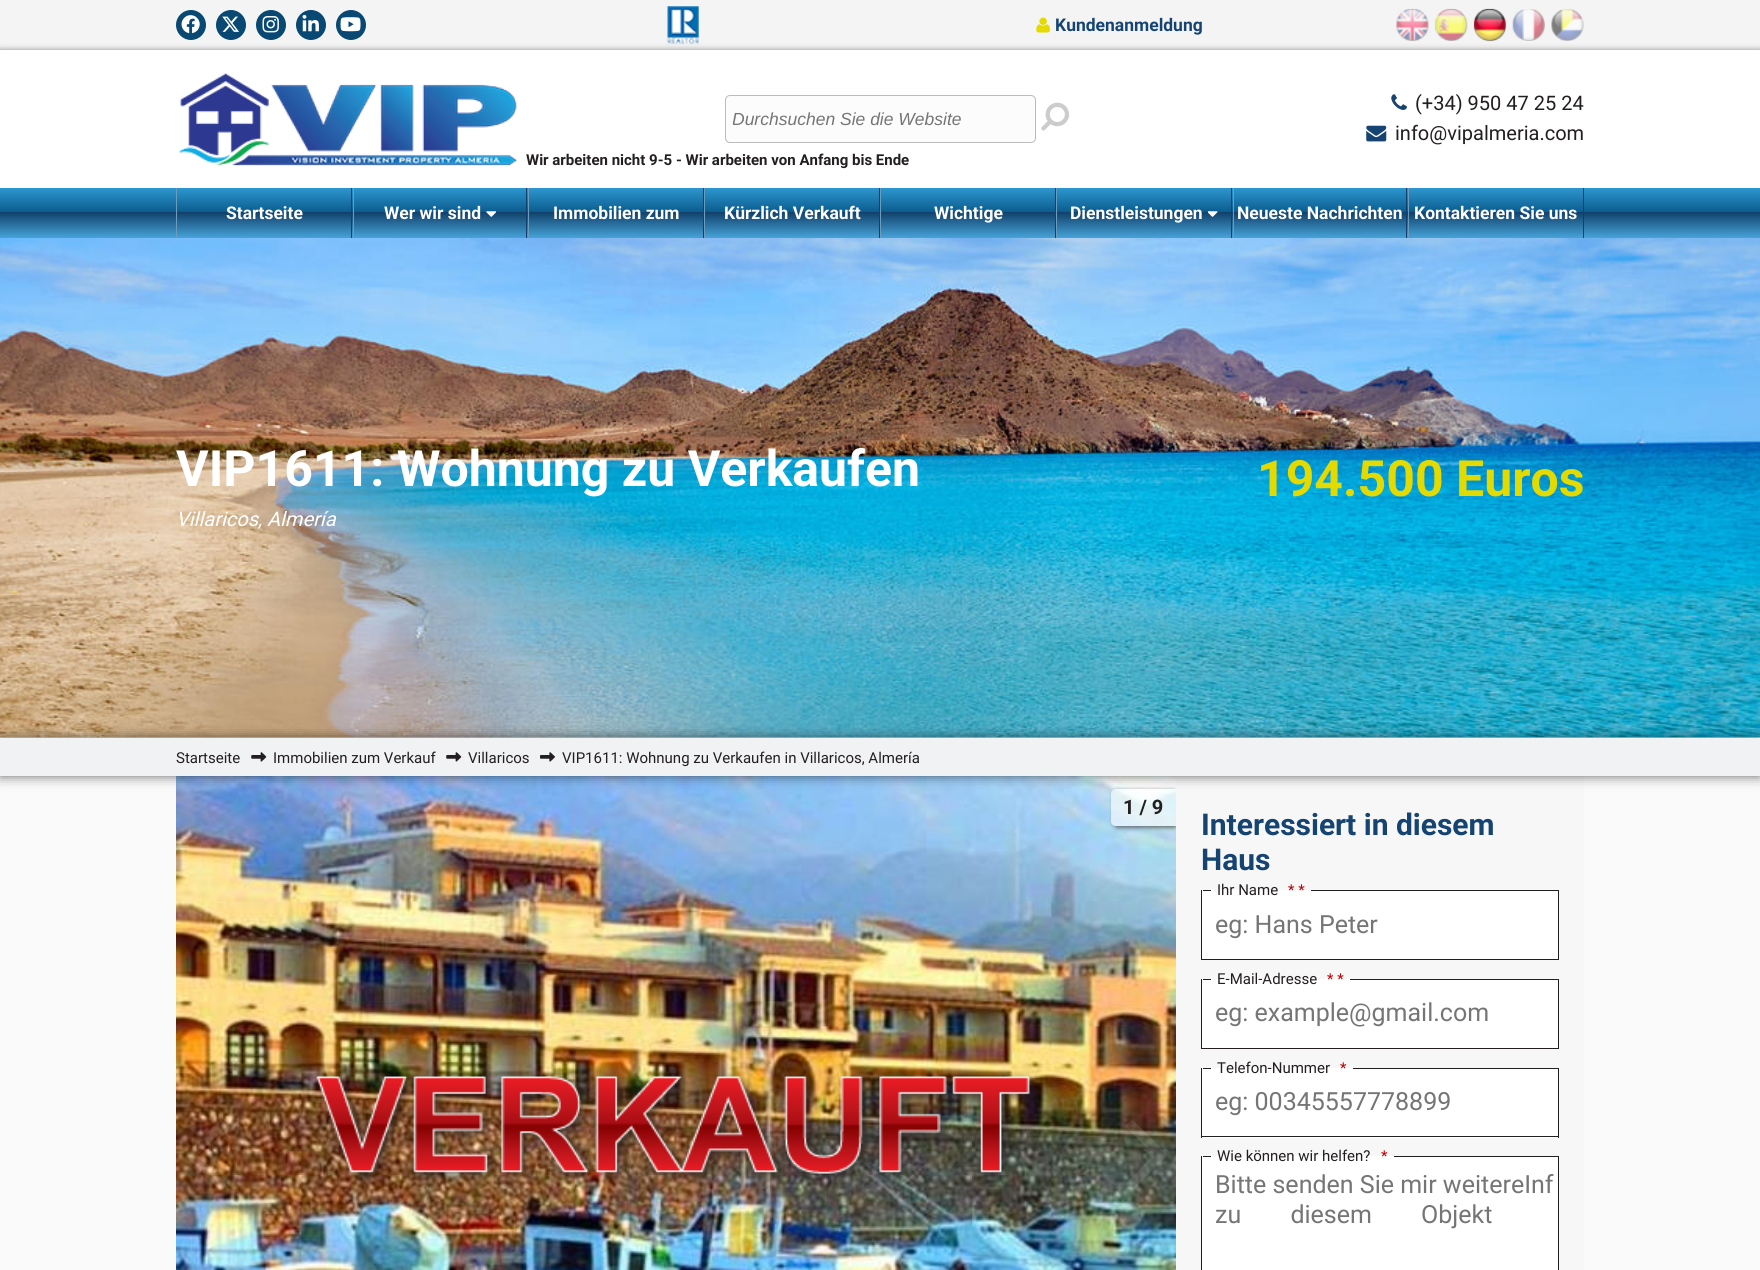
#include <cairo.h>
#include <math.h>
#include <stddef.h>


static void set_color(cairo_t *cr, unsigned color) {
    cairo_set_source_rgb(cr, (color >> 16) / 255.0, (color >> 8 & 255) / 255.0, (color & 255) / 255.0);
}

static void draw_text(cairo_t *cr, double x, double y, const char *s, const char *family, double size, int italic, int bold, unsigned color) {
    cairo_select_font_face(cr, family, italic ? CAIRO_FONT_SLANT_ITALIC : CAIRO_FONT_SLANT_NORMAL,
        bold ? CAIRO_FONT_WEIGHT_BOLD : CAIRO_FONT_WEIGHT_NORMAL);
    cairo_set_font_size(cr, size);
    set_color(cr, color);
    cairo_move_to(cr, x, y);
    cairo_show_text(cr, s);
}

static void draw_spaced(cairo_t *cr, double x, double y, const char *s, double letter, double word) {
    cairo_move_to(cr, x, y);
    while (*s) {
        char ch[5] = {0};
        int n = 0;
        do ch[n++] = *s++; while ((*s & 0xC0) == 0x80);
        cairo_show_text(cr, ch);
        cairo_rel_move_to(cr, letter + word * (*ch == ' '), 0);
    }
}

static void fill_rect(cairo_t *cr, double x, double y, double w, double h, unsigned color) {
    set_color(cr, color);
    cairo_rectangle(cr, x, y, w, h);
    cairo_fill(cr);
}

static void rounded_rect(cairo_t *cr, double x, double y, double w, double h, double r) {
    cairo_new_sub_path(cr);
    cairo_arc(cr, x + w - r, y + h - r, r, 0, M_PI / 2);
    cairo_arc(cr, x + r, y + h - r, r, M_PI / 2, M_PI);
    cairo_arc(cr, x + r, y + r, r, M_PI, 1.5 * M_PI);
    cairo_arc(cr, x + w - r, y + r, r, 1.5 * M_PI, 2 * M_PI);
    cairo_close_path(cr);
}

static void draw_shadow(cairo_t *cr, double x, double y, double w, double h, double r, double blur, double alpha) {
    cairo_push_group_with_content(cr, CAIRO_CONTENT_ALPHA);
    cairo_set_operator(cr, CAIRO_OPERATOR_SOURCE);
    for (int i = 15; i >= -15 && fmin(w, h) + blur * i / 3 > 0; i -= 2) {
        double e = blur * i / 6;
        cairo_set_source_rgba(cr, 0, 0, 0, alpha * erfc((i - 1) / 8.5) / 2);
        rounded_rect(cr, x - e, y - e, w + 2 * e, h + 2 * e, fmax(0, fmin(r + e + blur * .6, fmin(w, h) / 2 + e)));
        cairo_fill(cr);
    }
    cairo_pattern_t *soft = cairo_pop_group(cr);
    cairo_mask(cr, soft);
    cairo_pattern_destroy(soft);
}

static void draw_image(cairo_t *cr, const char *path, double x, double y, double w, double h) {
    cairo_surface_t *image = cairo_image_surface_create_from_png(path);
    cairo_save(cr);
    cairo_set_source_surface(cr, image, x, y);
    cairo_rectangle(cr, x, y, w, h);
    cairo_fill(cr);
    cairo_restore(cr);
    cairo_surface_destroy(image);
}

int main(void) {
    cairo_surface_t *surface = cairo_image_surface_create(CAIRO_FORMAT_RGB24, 1760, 1270);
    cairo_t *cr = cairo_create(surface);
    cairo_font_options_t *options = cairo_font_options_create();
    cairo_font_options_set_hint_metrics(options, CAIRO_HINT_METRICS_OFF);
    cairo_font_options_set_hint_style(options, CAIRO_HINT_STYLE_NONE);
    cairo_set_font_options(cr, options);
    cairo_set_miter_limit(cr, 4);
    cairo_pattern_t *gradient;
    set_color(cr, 0xFFFFFF);
    cairo_paint(cr);
    fill_rect(cr, 0, 0, 1760, 50, 0xF4F4F4);
    set_color(cr, 0x084873);
    cairo_arc(cr, 191, 25, 15, 0, 2 * M_PI);
    cairo_fill(cr);
    draw_image(cr, "assets/img1.png", 181, 15, 19, 19);
    cairo_arc(cr, 231, 25, 15, 0, 2 * M_PI);
    cairo_fill(cr);
    draw_image(cr, "assets/img2.png", 222, 16, 17, 16);
    cairo_arc(cr, 271, 25, 15, 0, 2 * M_PI);
    cairo_fill(cr);
    draw_image(cr, "assets/img3.png", 262, 16, 17, 17);
    cairo_arc(cr, 311, 25, 15, 0, 2 * M_PI);
    cairo_fill(cr);
    draw_image(cr, "assets/img4.png", 302, 14, 17, 18);
    cairo_arc(cr, 351, 25, 15, 0, 2 * M_PI);
    cairo_fill(cr);
    draw_image(cr, "assets/img5.png", 340, 17, 21, 15);
    draw_image(cr, "assets/img6.png", 667, 6, 32, 38);
    draw_image(cr, "assets/img7.png", 1036, 17, 14, 16);
    draw_text(cr, 1055, 31, "Kundenanmeldung", "Roboto", 17.5, 0, 1, 0x154372);
    draw_image(cr, "assets/img8.png", 1396, 8, 33, 33);
    draw_image(cr, "assets/img9.png", 1435, 8, 33, 33);
    draw_image(cr, "assets/img10.png", 1473, 8, 34, 34);
    draw_image(cr, "assets/img11.png", 1512, 9, 33, 32);
    draw_image(cr, "assets/img12.png", 1551, 8, 33, 33);
    cairo_save(cr);
    cairo_set_fill_rule(cr, CAIRO_FILL_RULE_EVEN_ODD);
    cairo_new_path(cr);
    cairo_move_to(cr, 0, 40);
    cairo_line_to(cr, 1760, 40);
    cairo_line_to(cr, 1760, 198);
    cairo_line_to(cr, 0, 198);
    cairo_close_path(cr);
    cairo_move_to(cr, 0, 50);
    cairo_line_to(cr, 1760, 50);
    cairo_line_to(cr, 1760, 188);
    cairo_line_to(cr, 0, 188);
    cairo_close_path(cr);
    cairo_clip(cr);
    set_color(cr, 0x231F20);
    draw_shadow(cr, 0, 50, 1760, 138, 0, 3, 0.5);
    cairo_restore(cr);
    draw_image(cr, "assets/img13.png", 178, 73, 339, 93);
    draw_image(cr, "assets/img14.png", 1391, 94, 16, 16);
    draw_text(cr, 1415, 110, "(+34) 950 47 25 24", "Roboto", 20, 0, 0, 0x231F20);
    draw_image(cr, "assets/img15.png", 1366, 125, 21, 17);
    draw_text(cr, 1395, 140, "info@vipalmeria.com", "Roboto", 20, 0, 0, 0x231F20);
    draw_text(cr, 526, 165, "Wir arbeiten nicht 9-5 - Wir arbeiten von Anfang bis Ende", "Roboto", 15, 0, 1, 0x231F20);
    gradient = cairo_pattern_create_linear(880, 187, 880, 238);
    cairo_pattern_add_color_stop_rgba(gradient, 0, 0.18, 0.6, 0.82, 1);
    cairo_pattern_add_color_stop_rgba(gradient, 0.5, 0.043, 0.357, 0.553, 1);
    cairo_pattern_add_color_stop_rgba(gradient, 0.5, 0.067, 0.259, 0.427, 1);
    cairo_pattern_add_color_stop_rgba(gradient, 1, 0.275, 0.639, 0.847, 1);
    cairo_set_source(cr, gradient);
    cairo_pattern_destroy(gradient);
    cairo_rectangle(cr, 0, 188, 1760, 50);
    cairo_fill(cr);
    set_color(cr, 0xFCFCFC);
    rounded_rect(cr, 725.5, 95.5, 310, 47, 4.5);
    cairo_fill_preserve(cr);
    set_color(cr, 0xBBBBBB);
    cairo_set_line_width(cr, 1);
    cairo_stroke(cr);
    cairo_save(cr);
    cairo_rectangle(cr, 733, 109, 296, 20);
    cairo_clip(cr);
    draw_text(cr, 732, 125, "Durchsuchen Sie die Website", "Liberation Sans", 17.5, 1, 0, 0x757575);
    cairo_restore(cr);
    draw_image(cr, "assets/img16.png", 1041, 102, 29, 29);
    fill_rect(cr, 351, 188, 1, 50, 0x0E416F);
    fill_rect(cr, 176, 188, 1, 50, 0x6C9BBB);
    draw_text(cr, 226, 219, "Startseite", "Roboto", 17.5, 0, 1, 0xFFFFFF);
    fill_rect(cr, 526, 188, 1, 50, 0x0E416F);
    fill_rect(cr, 353, 188, 1, 50, 0x6C9BBB);
    draw_text(cr, 384, 219, "Wer wir sind", "Roboto", 17.5, 0, 1, 0xFFFFFF);
    draw_image(cr, "assets/img17.png", 486, 211, 10, 6);
    fill_rect(cr, 703, 188, 1, 50, 0x0E416F);
    fill_rect(cr, 528, 188, 1, 50, 0x6C9BBB);
    draw_text(cr, 553, 219, "Immobilien zum", "Roboto", 17.5, 0, 1, 0xFFFFFF);
    fill_rect(cr, 879, 188, 1, 50, 0x0E416F);
    fill_rect(cr, 704, 188, 1, 50, 0x6C9BBB);
    draw_text(cr, 724, 219, "Kürzlich Verkauft", "Roboto", 17.5, 0, 1, 0xFFFFFF);
    fill_rect(cr, 1055, 188, 1, 50, 0x0E416F);
    fill_rect(cr, 880, 188, 1, 50, 0x6C9BBB);
    draw_text(cr, 934, 219, "Wichtige", "Roboto", 17.5, 0, 1, 0xFFFFFF);
    fill_rect(cr, 1231, 188, 1, 50, 0x0E416F);
    fill_rect(cr, 1056, 188, 1, 50, 0x6C9BBB);
    draw_text(cr, 1070, 219, "Dienstleistungen", "Roboto", 17.5, 0, 1, 0xFFFFFF);
    draw_image(cr, "assets/img18.png", 1208, 211, 10, 6);
    fill_rect(cr, 1406, 188, 1, 50, 0x0E416F);
    fill_rect(cr, 1233, 188, 1, 50, 0x6C9BBB);
    draw_text(cr, 1237, 219, "Neueste Nachrichten", "Roboto", 17.5, 0, 1, 0xFFFFFF);
    fill_rect(cr, 1583, 188, 1, 50, 0x0E416F);
    fill_rect(cr, 1408, 188, 1, 50, 0x6C9BBB);
    draw_text(cr, 1414, 219, "Kontaktieren Sie uns", "Roboto", 17.5, 0, 1, 0xFFFFFF);
    draw_image(cr, "assets/img19.png", 0, 238, 1760, 500);
    draw_text(cr, 176, 486, "VIP1611: Wohnung zu Verkaufen", "Roboto", 50, 0, 1, 0xFFFFFF);
    draw_text(cr, 176, 526, "Villaricos, Almería", "Roboto", 20, 1, 0, 0xFFFFFF);
    draw_text(cr, 1257, 496, "194.500 Euros", "Roboto", 50, 0, 1, 0xE4DA00);
    fill_rect(cr, 0, 776, 1760, 494, 0xFAFAFA);
    draw_image(cr, "assets/img22.png", 176, 776, 1000, 494);
    cairo_save(cr);
    cairo_set_fill_rule(cr, CAIRO_FILL_RULE_EVEN_ODD);
    cairo_new_path(cr);
    cairo_move_to(cr, 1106, 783);
    cairo_line_to(cr, 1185, 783);
    cairo_line_to(cr, 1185, 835);
    cairo_line_to(cr, 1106, 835);
    cairo_close_path(cr);
    cairo_move_to(cr, 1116, 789);
    cairo_line_to(cr, 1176, 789);
    cairo_line_to(cr, 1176, 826);
    cairo_line_to(cr, 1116, 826);
    cairo_curve_to(cr, 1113, 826, 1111, 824, 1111, 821);
    cairo_line_to(cr, 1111, 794);
    cairo_curve_to(cr, 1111, 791, 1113, 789, 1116, 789);
    cairo_close_path(cr);
    cairo_clip(cr);
    set_color(cr, 0x575757);
    draw_shadow(cr, 1113, 790, 65, 38, 5, 2, 0.8);
    cairo_restore(cr);
    cairo_set_source_rgba(cr, 1, 1, 1, 0.6);
    cairo_new_path(cr);
    cairo_move_to(cr, 1116, 789);
    cairo_line_to(cr, 1176, 789);
    cairo_line_to(cr, 1176, 826);
    cairo_line_to(cr, 1116, 826);
    cairo_curve_to(cr, 1113, 826, 1111, 824, 1111, 821);
    cairo_line_to(cr, 1111, 794);
    cairo_curve_to(cr, 1111, 791, 1113, 789, 1116, 789);
    cairo_close_path(cr);
    cairo_fill(cr);
    fill_rect(cr, 1176, 776, 408, 494, 0xF7F7F7);
    set_color(cr, 0x000000);
    draw_shadow(cr, 0, 738, 1760, 38, 0, 6, 0.6);
    fill_rect(cr, 0, 738, 1760, 38, 0xF1F2F3);
    draw_text(cr, 176, 763, "Startseite", "Roboto", 15, 0, 0, 0x231F20);
    draw_image(cr, "assets/img20.png", 251, 752, 16, 10);
    draw_text(cr, 273, 763, "Immobilien zum Verkauf", "Roboto", 15, 0, 0, 0x231F20);
    draw_image(cr, "assets/img20.png", 446, 752, 16, 10);
    draw_text(cr, 468, 763, "Villaricos", "Roboto", 15, 0, 0, 0x231F20);
    draw_image(cr, "assets/img21.png", 540, 752, 15, 10);
    draw_text(cr, 562, 763, "VIP1611: Wohnung zu Verkaufen in Villaricos, Almería", "Roboto", 15, 0, 0, 0x231F20);
    cairo_set_source_rgba(cr, 1, 1, 1, 0.1);
    cairo_new_path(cr);
    cairo_move_to(cr, 226, 1124);
    cairo_curve_to(cr, 228, 1127, 222, 1131, 221, 1132);
    cairo_line_to(cr, 198, 1155);
    cairo_line_to(cr, 226, 1182);
    cairo_curve_to(cr, 227, 1184, 224, 1187, 223, 1188);
    cairo_curve_to(cr, 222, 1189, 220, 1191, 219, 1189);
    cairo_line_to(cr, 192, 1162);
    cairo_curve_to(cr, 184, 1154, 184, 1156, 192, 1148);
    cairo_line_to(cr, 219, 1121);
    cairo_curve_to(cr, 221, 1118, 224, 1123, 226, 1124);
    cairo_close_path(cr);
    cairo_fill(cr);
    draw_image(cr, "assets/img23.png", 315, 1071, 723, 113);
    cairo_new_path(cr);
    cairo_move_to(cr, 1166, 1153);
    cairo_curve_to(cr, 1169, 1156, 1161, 1162, 1160, 1162);
    cairo_line_to(cr, 1139, 1184);
    cairo_curve_to(cr, 1139, 1184, 1133, 1192, 1130, 1189);
    cairo_curve_to(cr, 1129, 1188, 1124, 1185, 1127, 1182);
    cairo_line_to(cr, 1154, 1155);
    cairo_line_to(cr, 1131, 1132);
    cairo_curve_to(cr, 1131, 1132, 1125, 1128, 1126, 1125);
    cairo_line_to(cr, 1129, 1122);
    cairo_curve_to(cr, 1133, 1118, 1134, 1122, 1139, 1126);
    cairo_close_path(cr);
    cairo_fill(cr);
    draw_text(cr, 1123, 814, "1 / 9", "Roboto", 20, 0, 1, 0x231F20);
    draw_text(cr, 1201, 835, "Interessiert in diesem", "Roboto", 30, 0, 1, 0x154372);
    draw_text(cr, 1201, 870, "Haus", "Roboto", 30, 0, 1, 0x154372);
    fill_rect(cr, 1202, 890, 356, 69, 0xFFFFFF);
    fill_rect(cr, 1558, 890, 1, 70, 0x231F20);
    fill_rect(cr, 1201, 959, 358, 1, 0x231F20);
    fill_rect(cr, 1201, 890, 1, 70, 0x231F20);
    fill_rect(cr, 1203, 890, 8, 1, 0x231F20);
    draw_text(cr, 1217, 895, "Ihr Name", "Roboto", 15, 0, 0, 0x231F20);
    draw_text(cr, 1288, 895, "* *", "Roboto", 15, 0, 0, 0xBB0003);
    fill_rect(cr, 1311, 890, 247, 1, 0x231F20);
    draw_text(cr, 1215, 933, "eg: Hans Peter", "Roboto", 25, 0, 0, 0x757575);
    fill_rect(cr, 1202, 979, 356, 69, 0xFFFFFF);
    fill_rect(cr, 1558, 979, 1, 70, 0x231F20);
    fill_rect(cr, 1201, 1048, 358, 1, 0x231F20);
    fill_rect(cr, 1201, 979, 1, 70, 0x231F20);
    fill_rect(cr, 1203, 979, 8, 1, 0x231F20);
    draw_text(cr, 1217, 984, "E-Mail-Adresse", "Roboto", 15, 0, 0, 0x231F20);
    draw_text(cr, 1327, 984, "* *", "Roboto", 15, 0, 0, 0xBB0003);
    fill_rect(cr, 1350, 979, 208, 1, 0x231F20);
    draw_text(cr, 1215, 1021, "eg: example@gmail.com", "Roboto", 25, 0, 0, 0x757575);
    fill_rect(cr, 1202, 1068, 356, 70, 0xFFFFFF);
    fill_rect(cr, 1558, 1068, 1, 70, 0x231F20);
    fill_rect(cr, 1201, 1136, 358, 1, 0x231F20);
    fill_rect(cr, 1201, 1068, 1, 70, 0x231F20);
    fill_rect(cr, 1203, 1068, 8, 1, 0x231F20);
    draw_text(cr, 1217, 1073, "Telefon-Nummer", "Roboto", 15, 0, 0, 0x231F20);
    draw_text(cr, 1340, 1073, "*", "Roboto", 15, 0, 0, 0xBB0003);
    fill_rect(cr, 1353, 1068, 205, 1, 0x231F20);
    draw_text(cr, 1215, 1110, "eg: 00345557778899", "Roboto", 25, 0, 0, 0x757575);
    fill_rect(cr, 1202, 1156, 356, 114, 0xFFFFFF);
    fill_rect(cr, 1558, 1156, 1, 114, 0x231F20);
    fill_rect(cr, 1201, 1156, 1, 114, 0x231F20);
    fill_rect(cr, 1203, 1156, 8, 1, 0x231F20);
    draw_text(cr, 1217, 1161, "Wie können wir helfen?", "Roboto", 15, 0, 0, 0x231F20);
    draw_text(cr, 1381, 1161, "*", "Roboto", 15, 0, 0, 0xBB0003);
    fill_rect(cr, 1394, 1156, 164, 1, 0x231F20);
    draw_text(cr, 1215, 1193, "Bitte senden Sie mir weitereInf", "Roboto", 25, 0, 0, 0x757575);
    draw_spaced(cr, 1215, 1223, "zu diesem Objekt", 0, 43);
    cairo_surface_write_to_png(surface, "output.png");
    cairo_font_options_destroy(options);
    cairo_destroy(cr);
    cairo_surface_destroy(surface);
    return 0;
}
